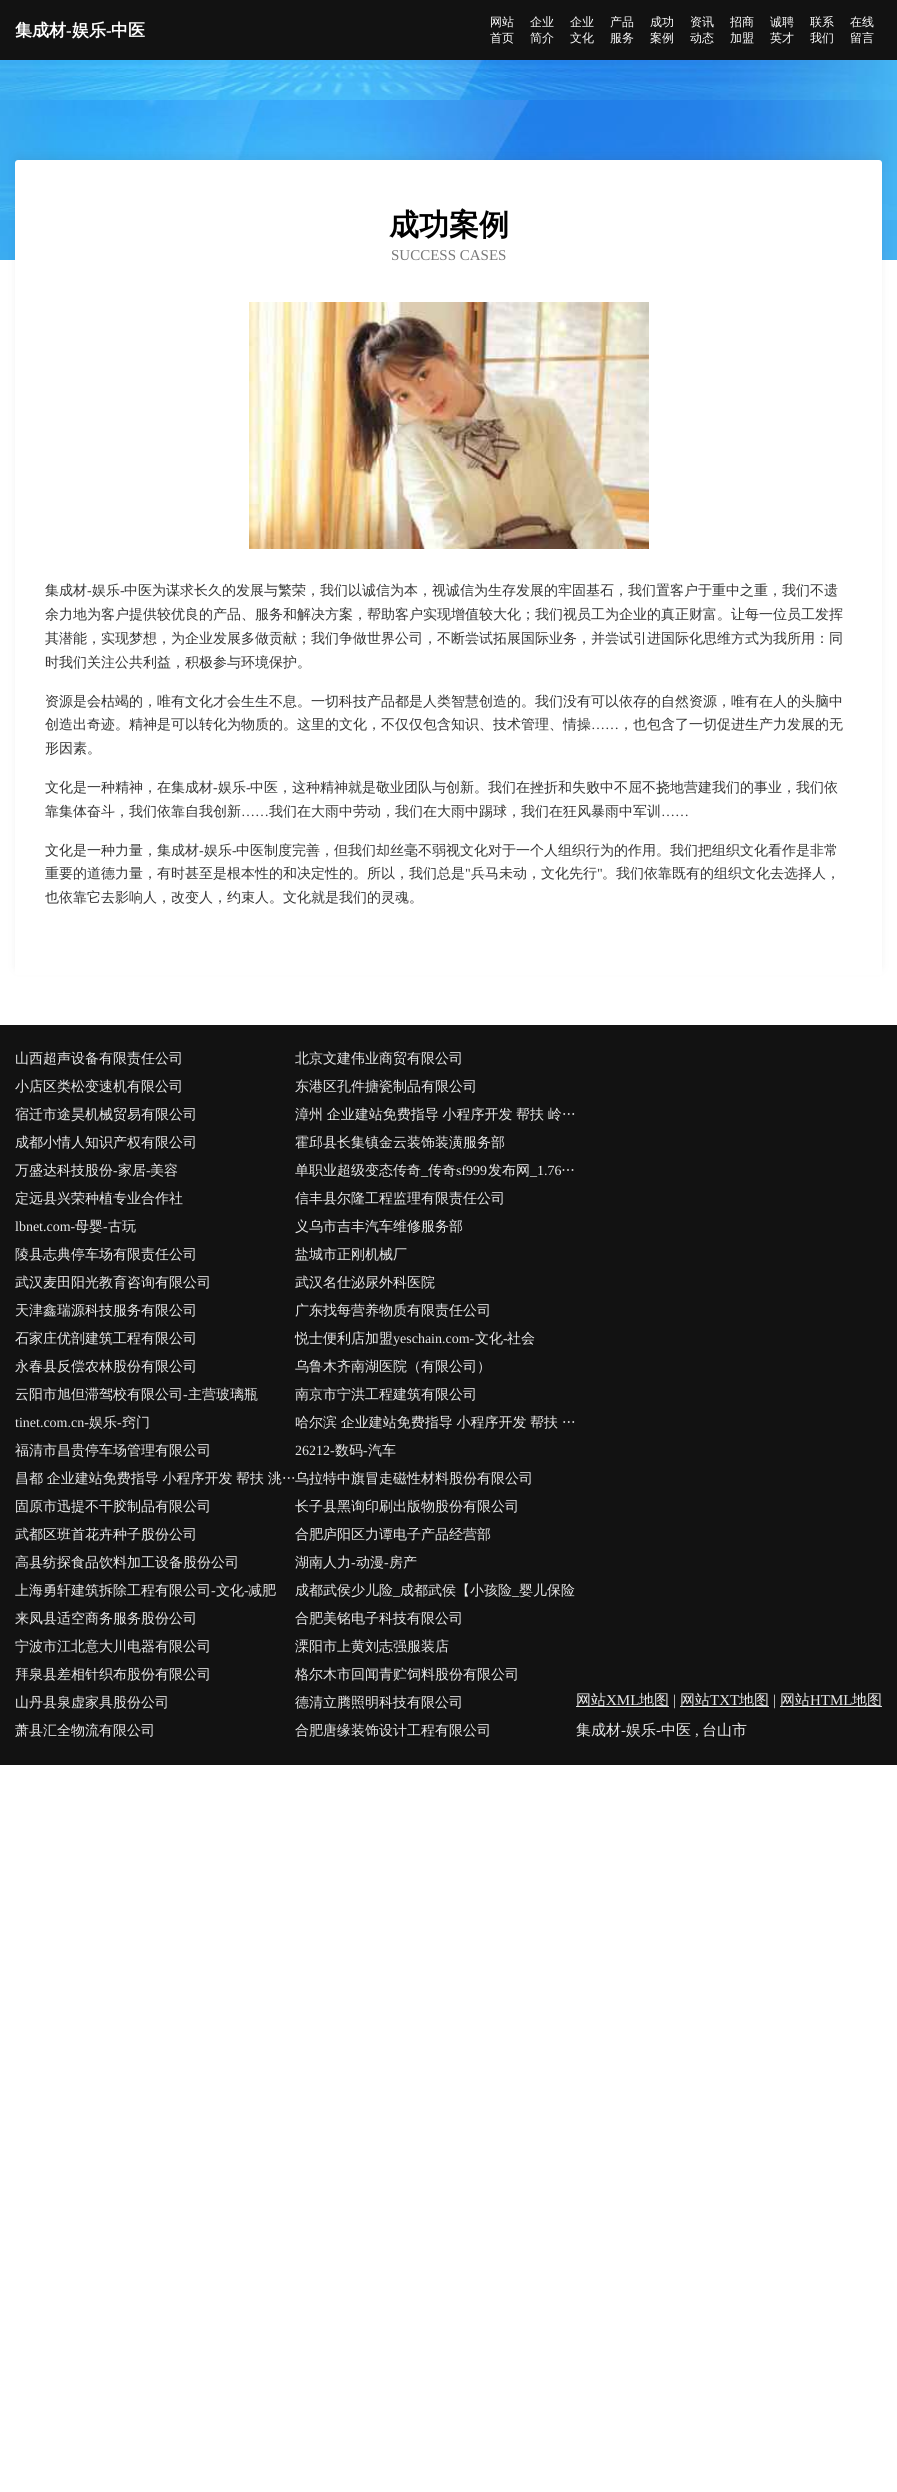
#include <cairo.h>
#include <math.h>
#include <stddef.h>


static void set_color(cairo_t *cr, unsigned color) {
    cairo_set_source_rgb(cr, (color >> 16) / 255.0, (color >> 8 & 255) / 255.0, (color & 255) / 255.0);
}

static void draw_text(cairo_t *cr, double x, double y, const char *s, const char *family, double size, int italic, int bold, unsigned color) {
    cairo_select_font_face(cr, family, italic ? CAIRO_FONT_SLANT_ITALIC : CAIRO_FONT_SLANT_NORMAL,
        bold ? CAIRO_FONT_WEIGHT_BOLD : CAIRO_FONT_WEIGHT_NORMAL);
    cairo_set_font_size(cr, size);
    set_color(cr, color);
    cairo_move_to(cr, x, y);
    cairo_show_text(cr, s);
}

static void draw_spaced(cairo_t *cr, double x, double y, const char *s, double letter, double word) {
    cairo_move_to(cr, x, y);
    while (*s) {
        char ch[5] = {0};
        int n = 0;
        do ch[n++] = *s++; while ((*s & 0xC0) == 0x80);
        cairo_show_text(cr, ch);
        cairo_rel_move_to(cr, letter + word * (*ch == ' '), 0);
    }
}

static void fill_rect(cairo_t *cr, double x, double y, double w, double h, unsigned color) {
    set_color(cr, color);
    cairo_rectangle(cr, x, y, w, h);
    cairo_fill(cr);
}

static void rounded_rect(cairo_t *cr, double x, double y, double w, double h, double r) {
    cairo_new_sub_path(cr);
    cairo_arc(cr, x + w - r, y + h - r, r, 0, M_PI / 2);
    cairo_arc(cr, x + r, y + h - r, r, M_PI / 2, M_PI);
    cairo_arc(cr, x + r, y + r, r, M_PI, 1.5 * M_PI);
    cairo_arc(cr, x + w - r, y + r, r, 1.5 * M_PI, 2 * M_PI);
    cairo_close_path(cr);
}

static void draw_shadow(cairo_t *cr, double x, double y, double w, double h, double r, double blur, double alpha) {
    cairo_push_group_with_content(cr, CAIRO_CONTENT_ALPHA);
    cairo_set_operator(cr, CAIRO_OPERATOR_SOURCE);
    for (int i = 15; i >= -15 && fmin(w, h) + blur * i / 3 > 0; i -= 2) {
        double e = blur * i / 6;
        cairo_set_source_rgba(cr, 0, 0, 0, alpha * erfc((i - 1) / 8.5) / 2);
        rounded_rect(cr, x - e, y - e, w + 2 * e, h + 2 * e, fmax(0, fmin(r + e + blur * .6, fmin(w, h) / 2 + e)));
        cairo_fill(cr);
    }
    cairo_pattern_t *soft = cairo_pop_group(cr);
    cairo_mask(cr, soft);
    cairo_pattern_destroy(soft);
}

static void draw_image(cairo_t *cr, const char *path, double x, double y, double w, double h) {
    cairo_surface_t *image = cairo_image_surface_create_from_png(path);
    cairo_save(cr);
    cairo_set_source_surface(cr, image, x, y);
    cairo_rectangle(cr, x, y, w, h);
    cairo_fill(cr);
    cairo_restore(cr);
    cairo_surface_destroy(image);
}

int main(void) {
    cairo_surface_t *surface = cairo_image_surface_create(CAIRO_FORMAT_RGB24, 897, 2492);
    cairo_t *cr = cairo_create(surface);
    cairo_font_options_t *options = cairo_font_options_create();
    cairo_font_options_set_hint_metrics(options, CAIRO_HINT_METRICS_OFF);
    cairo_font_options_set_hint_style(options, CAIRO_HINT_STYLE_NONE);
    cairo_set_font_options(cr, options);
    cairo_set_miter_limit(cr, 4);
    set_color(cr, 0xFFFFFF);
    cairo_paint(cr);
    fill_rect(cr, 0, 0, 897, 60, 0x121212);
    draw_text(cr, 15, 36, "集成材", "WenQuanYi Zen Hei", 17, 0, 1, 0xFFFFFF);
    draw_text(cr, 66, 36, "-", "Liberation Serif", 17, 0, 1, 0xFFFFFF);
    draw_text(cr, 72, 36, "娱乐", "WenQuanYi Zen Hei", 17, 0, 1, 0xFFFFFF);
    draw_text(cr, 106, 36, "-", "Liberation Serif", 17, 0, 1, 0xFFFFFF);
    draw_text(cr, 111, 36, "中医", "WenQuanYi Zen Hei", 17, 0, 1, 0xFFFFFF);
    draw_text(cr, 490, 26, "网站", "WenQuanYi Zen Hei Medium", 12, 0, 0, 0xFFFFFF);
    draw_text(cr, 490, 42, "首页", "WenQuanYi Zen Hei Medium", 12, 0, 0, 0xFFFFFF);
    draw_text(cr, 530, 26, "企业", "WenQuanYi Zen Hei Medium", 12, 0, 0, 0xFFFFFF);
    draw_text(cr, 530, 42, "简介", "WenQuanYi Zen Hei Medium", 12, 0, 0, 0xFFFFFF);
    draw_text(cr, 570, 26, "企业", "WenQuanYi Zen Hei Medium", 12, 0, 0, 0xFFFFFF);
    draw_text(cr, 570, 42, "文化", "WenQuanYi Zen Hei Medium", 12, 0, 0, 0xFFFFFF);
    draw_text(cr, 610, 26, "产品", "WenQuanYi Zen Hei Medium", 12, 0, 0, 0xFFFFFF);
    draw_text(cr, 610, 42, "服务", "WenQuanYi Zen Hei Medium", 12, 0, 0, 0xFFFFFF);
    draw_text(cr, 650, 26, "成功", "WenQuanYi Zen Hei Medium", 12, 0, 0, 0xFFFFFF);
    draw_text(cr, 650, 42, "案例", "WenQuanYi Zen Hei Medium", 12, 0, 0, 0xFFFFFF);
    draw_text(cr, 690, 26, "资讯", "WenQuanYi Zen Hei Medium", 12, 0, 0, 0xFFFFFF);
    draw_text(cr, 690, 42, "动态", "WenQuanYi Zen Hei Medium", 12, 0, 0, 0xFFFFFF);
    draw_text(cr, 730, 26, "招商", "WenQuanYi Zen Hei Medium", 12, 0, 0, 0xFFFFFF);
    draw_text(cr, 730, 42, "加盟", "WenQuanYi Zen Hei Medium", 12, 0, 0, 0xFFFFFF);
    draw_text(cr, 770, 26, "诚聘", "WenQuanYi Zen Hei Medium", 12, 0, 0, 0xFFFFFF);
    draw_text(cr, 770, 42, "英才", "WenQuanYi Zen Hei Medium", 12, 0, 0, 0xFFFFFF);
    draw_text(cr, 810, 26, "联系", "WenQuanYi Zen Hei Medium", 12, 0, 0, 0xFFFFFF);
    draw_text(cr, 810, 42, "我们", "WenQuanYi Zen Hei Medium", 12, 0, 0, 0xFFFFFF);
    draw_text(cr, 850, 26, "在线", "WenQuanYi Zen Hei Medium", 12, 0, 0, 0xFFFFFF);
    draw_text(cr, 850, 42, "留言", "WenQuanYi Zen Hei Medium", 12, 0, 0, 0xFFFFFF);
    draw_image(cr, "assets/img1.png", 0, 60, 897, 200);
    set_color(cr, 0x424242);
    draw_shadow(cr, 16, 156, 865, 813, 2, 4.5, 0.09);
    set_color(cr, 0xFFFFFF);
    rounded_rect(cr, 15, 160, 867, 815, 3);
    cairo_fill(cr);
    draw_text(cr, 389, 235, "成功案例", "WenQuanYi Zen Hei", 30, 0, 1, 0x000000);
    draw_text(cr, 391, 260, "SUCCESS CASES", "Liberation Serif", 15, 0, 0, 0x787878);
    draw_image(cr, "assets/img2.png", 249, 302, 400, 247);
    draw_text(cr, 45, 595, "集成材", "WenQuanYi Zen Hei Medium", 14, 0, 0, 0x343434);
    draw_text(cr, 87, 595, "-", "Liberation Serif", 14, 0, 0, 0x343434);
    draw_text(cr, 92, 595, "娱乐", "WenQuanYi Zen Hei Medium", 14, 0, 0, 0x343434);
    draw_text(cr, 120, 595, "-", "Liberation Serif", 14, 0, 0, 0x343434);
    draw_text(cr, 124, 595, "中医为谋求长久的发展与繁荣，我们以诚信为本，视诚信为生存发展的牢固基石，我们置客户于重中之重，我们不遗", "WenQuanYi Zen Hei Medium", 14, 0, 0, 0x343434);
    draw_text(cr, 45, 619, "余力地为客户提供较优良的产品、服务和解决方案，帮助客户实现增值较大化；我们视员工为企业的真正财富。让每一位员工发挥", "WenQuanYi Zen Hei Medium", 14, 0, 0, 0x343434);
    draw_text(cr, 45, 643, "其潜能，实现梦想，为企业发展多做贡献；我们争做世界公司，不断尝试拓展国际业务，并尝试引进国际化思维方式为我所用：同", "WenQuanYi Zen Hei Medium", 14, 0, 0, 0x343434);
    draw_text(cr, 45, 667, "时我们关注公共利益，积极参与环境保护。", "WenQuanYi Zen Hei Medium", 14, 0, 0, 0x343434);
    draw_text(cr, 45, 706, "资源是会枯竭的，唯有文化才会生生不息。一切科技产品都是人类智慧创造的。我们没有可以依存的自然资源，唯有在人的头脑中", "WenQuanYi Zen Hei Medium", 14, 0, 0, 0x343434);
    draw_text(cr, 45, 729, "创造出奇迹。精神是可以转化为物质的。这里的文化，不仅仅包含知识、技术管理、情操", "WenQuanYi Zen Hei Medium", 14, 0, 0, 0x343434);
    draw_text(cr, 591, 729, "……", "Liberation Serif", 14, 0, 0, 0x343434);
    draw_text(cr, 619, 729, "，也包含了一切促进生产力发展的无", "WenQuanYi Zen Hei Medium", 14, 0, 0, 0x343434);
    draw_text(cr, 45, 753, "形因素。", "WenQuanYi Zen Hei Medium", 14, 0, 0, 0x343434);
    draw_text(cr, 45, 792, "文化是一种精神，在集成材", "WenQuanYi Zen Hei Medium", 14, 0, 0, 0x343434);
    draw_text(cr, 213, 792, "-", "Liberation Serif", 14, 0, 0, 0x343434);
    draw_text(cr, 218, 792, "娱乐", "WenQuanYi Zen Hei Medium", 14, 0, 0, 0x343434);
    draw_text(cr, 246, 792, "-", "Liberation Serif", 14, 0, 0, 0x343434);
    draw_text(cr, 250, 792, "中医，这种精神就是敬业团队与创新。我们在挫折和失败中不屈不挠地营建我们的事业，我们依", "WenQuanYi Zen Hei Medium", 14, 0, 0, 0x343434);
    draw_text(cr, 45, 816, "靠集体奋斗，我们依靠自我创新", "WenQuanYi Zen Hei Medium", 14, 0, 0, 0x343434);
    draw_text(cr, 241, 816, "……", "Liberation Serif", 14, 0, 0, 0x343434);
    draw_text(cr, 269, 816, "我们在大雨中劳动，我们在大雨中踢球，我们在狂风暴雨中军训", "WenQuanYi Zen Hei Medium", 14, 0, 0, 0x343434);
    draw_text(cr, 661, 816, "……", "Liberation Serif", 14, 0, 0, 0x343434);
    draw_text(cr, 45, 855, "文化是一种力量，集成材", "WenQuanYi Zen Hei Medium", 14, 0, 0, 0x343434);
    draw_text(cr, 199, 855, "-", "Liberation Serif", 14, 0, 0, 0x343434);
    draw_text(cr, 204, 855, "娱乐", "WenQuanYi Zen Hei Medium", 14, 0, 0, 0x343434);
    draw_text(cr, 232, 855, "-", "Liberation Serif", 14, 0, 0, 0x343434);
    draw_text(cr, 236, 855, "中医制度完善，但我们却丝毫不弱视文化对于一个人组织行为的作用。我们把组织文化看作是非常", "WenQuanYi Zen Hei Medium", 14, 0, 0, 0x343434);
    draw_text(cr, 45, 878, "重要的道德力量，有时甚至是根本性的和决定性的。所以，我们总是", "WenQuanYi Zen Hei Medium", 14, 0, 0, 0x343434);
    draw_text(cr, 465, 878, "\"", "Liberation Serif", 14, 0, 0, 0x343434);
    draw_text(cr, 471, 878, "兵马未动，文化先行", "WenQuanYi Zen Hei Medium", 14, 0, 0, 0x343434);
    draw_text(cr, 597, 878, "\"", "Liberation Serif", 14, 0, 0, 0x343434);
    draw_text(cr, 602, 878, "。我们依靠既有的组织文化去选择人，", "WenQuanYi Zen Hei Medium", 14, 0, 0, 0x343434);
    draw_text(cr, 45, 902, "也依靠它去影响人，改变人，约束人。文化就是我们的灵魂。", "WenQuanYi Zen Hei Medium", 14, 0, 0, 0x343434);
    fill_rect(cr, 0, 1025, 897, 740, 0x121212);
    draw_text(cr, 15, 1063, "山西超声设备有限责任公司", "WenQuanYi Zen Hei Medium", 14, 0, 0, 0xE9E9E9);
    draw_text(cr, 295, 1063, "北京文建伟业商贸有限公司", "WenQuanYi Zen Hei Medium", 14, 0, 0, 0xE9E9E9);
    draw_text(cr, 15, 1091, "小店区类松变速机有限公司", "WenQuanYi Zen Hei Medium", 14, 0, 0, 0xE9E9E9);
    draw_text(cr, 295, 1091, "东港区孔件搪瓷制品有限公司", "WenQuanYi Zen Hei Medium", 14, 0, 0, 0xE9E9E9);
    draw_text(cr, 15, 1119, "宿迁市途昊机械贸易有限公司", "WenQuanYi Zen Hei Medium", 14, 0, 0, 0xE9E9E9);
    draw_spaced(cr, 295, 1119, "漳州 企业建站免费指导 小程序开发 帮扶 岭…", 0, -0.5);
    draw_text(cr, 15, 1147, "成都小情人知识产权有限公司", "WenQuanYi Zen Hei Medium", 14, 0, 0, 0xE9E9E9);
    draw_text(cr, 295, 1147, "霍邱县长集镇金云装饰装潢服务部", "WenQuanYi Zen Hei Medium", 14, 0, 0, 0xE9E9E9);
    draw_text(cr, 15, 1175, "万盛达科技股份", "WenQuanYi Zen Hei Medium", 14, 0, 0, 0xE9E9E9);
    draw_text(cr, 113, 1175, "-", "Liberation Serif", 14, 0, 0, 0xE9E9E9);
    draw_text(cr, 118, 1175, "家居", "WenQuanYi Zen Hei Medium", 14, 0, 0, 0xE9E9E9);
    draw_text(cr, 146, 1175, "-", "Liberation Serif", 14, 0, 0, 0xE9E9E9);
    draw_text(cr, 150, 1175, "美容", "WenQuanYi Zen Hei Medium", 14, 0, 0, 0xE9E9E9);
    draw_text(cr, 295, 1175, "单职业超级变态传奇", "WenQuanYi Zen Hei Medium", 14, 0, 0, 0xE9E9E9);
    draw_text(cr, 421, 1175, "_", "Liberation Serif", 14, 0, 0, 0xE9E9E9);
    draw_text(cr, 428, 1175, "传奇", "WenQuanYi Zen Hei Medium", 14, 0, 0, 0xE9E9E9);
    draw_text(cr, 456, 1175, "sf999", "Liberation Serif", 14, 0, 0, 0xE9E9E9);
    draw_text(cr, 488, 1175, "发布网", "WenQuanYi Zen Hei Medium", 14, 0, 0, 0xE9E9E9);
    draw_text(cr, 530, 1175, "_1.76", "Liberation Serif", 14, 0, 0, 0xE9E9E9);
    draw_text(cr, 561, 1175, "…", "WenQuanYi Zen Hei Medium", 14, 0, 0, 0xE9E9E9);
    draw_text(cr, 15, 1203, "定远县兴荣种植专业合作社", "WenQuanYi Zen Hei Medium", 14, 0, 0, 0xE9E9E9);
    draw_text(cr, 295, 1203, "信丰县尔隆工程监理有限责任公司", "WenQuanYi Zen Hei Medium", 14, 0, 0, 0xE9E9E9);
    draw_text(cr, 15, 1231, "lbnet.com-", "Liberation Serif", 14, 0, 0, 0xE9E9E9);
    draw_text(cr, 75, 1231, "母婴", "WenQuanYi Zen Hei Medium", 14, 0, 0, 0xE9E9E9);
    draw_text(cr, 103, 1231, "-", "Liberation Serif", 14, 0, 0, 0xE9E9E9);
    draw_text(cr, 108, 1231, "古玩", "WenQuanYi Zen Hei Medium", 14, 0, 0, 0xE9E9E9);
    draw_text(cr, 295, 1231, "义乌市吉丰汽车维修服务部", "WenQuanYi Zen Hei Medium", 14, 0, 0, 0xE9E9E9);
    draw_text(cr, 15, 1259, "陵县志典停车场有限责任公司", "WenQuanYi Zen Hei Medium", 14, 0, 0, 0xE9E9E9);
    draw_text(cr, 295, 1259, "盐城市正刚机械厂", "WenQuanYi Zen Hei Medium", 14, 0, 0, 0xE9E9E9);
    draw_text(cr, 15, 1287, "武汉麦田阳光教育咨询有限公司", "WenQuanYi Zen Hei Medium", 14, 0, 0, 0xE9E9E9);
    draw_text(cr, 295, 1287, "武汉名仕泌尿外科医院", "WenQuanYi Zen Hei Medium", 14, 0, 0, 0xE9E9E9);
    draw_text(cr, 15, 1315, "天津鑫瑞源科技服务有限公司", "WenQuanYi Zen Hei Medium", 14, 0, 0, 0xE9E9E9);
    draw_text(cr, 295, 1315, "广东找每营养物质有限责任公司", "WenQuanYi Zen Hei Medium", 14, 0, 0, 0xE9E9E9);
    draw_text(cr, 15, 1343, "石家庄优剖建筑工程有限公司", "WenQuanYi Zen Hei Medium", 14, 0, 0, 0xE9E9E9);
    draw_text(cr, 295, 1343, "悦士便利店加盟", "WenQuanYi Zen Hei Medium", 14, 0, 0, 0xE9E9E9);
    draw_text(cr, 393, 1343, "yeschain.com-", "Liberation Serif", 14, 0, 0, 0xE9E9E9);
    draw_text(cr, 475, 1343, "文化", "WenQuanYi Zen Hei Medium", 14, 0, 0, 0xE9E9E9);
    draw_text(cr, 503, 1343, "-", "Liberation Serif", 14, 0, 0, 0xE9E9E9);
    draw_text(cr, 507, 1343, "社会", "WenQuanYi Zen Hei Medium", 14, 0, 0, 0xE9E9E9);
    draw_text(cr, 15, 1371, "永春县反偿农林股份有限公司", "WenQuanYi Zen Hei Medium", 14, 0, 0, 0xE9E9E9);
    draw_text(cr, 295, 1371, "乌鲁木齐南湖医院（有限公司）", "WenQuanYi Zen Hei Medium", 14, 0, 0, 0xE9E9E9);
    draw_text(cr, 15, 1399, "云阳市旭但滞驾校有限公司", "WenQuanYi Zen Hei Medium", 14, 0, 0, 0xE9E9E9);
    draw_text(cr, 183, 1399, "-", "Liberation Serif", 14, 0, 0, 0xE9E9E9);
    draw_text(cr, 188, 1399, "主营玻璃瓶", "WenQuanYi Zen Hei Medium", 14, 0, 0, 0xE9E9E9);
    draw_text(cr, 295, 1399, "南京市宁洪工程建筑有限公司", "WenQuanYi Zen Hei Medium", 14, 0, 0, 0xE9E9E9);
    draw_text(cr, 15, 1427, "tinet.com.cn-", "Liberation Serif", 14, 0, 0, 0xE9E9E9);
    draw_text(cr, 89, 1427, "娱乐", "WenQuanYi Zen Hei Medium", 14, 0, 0, 0xE9E9E9);
    draw_text(cr, 117, 1427, "-", "Liberation Serif", 14, 0, 0, 0xE9E9E9);
    draw_text(cr, 122, 1427, "窍门", "WenQuanYi Zen Hei Medium", 14, 0, 0, 0xE9E9E9);
    draw_spaced(cr, 295, 1427, "哈尔滨 企业建站免费指导 小程序开发 帮扶 …", 0, -0.5);
    draw_text(cr, 15, 1455, "福清市昌贵停车场管理有限公司", "WenQuanYi Zen Hei Medium", 14, 0, 0, 0xE9E9E9);
    draw_text(cr, 295, 1455, "26212-", "Liberation Serif", 14, 0, 0, 0xE9E9E9);
    draw_text(cr, 335, 1455, "数码", "WenQuanYi Zen Hei Medium", 14, 0, 0, 0xE9E9E9);
    draw_text(cr, 363, 1455, "-", "Liberation Serif", 14, 0, 0, 0xE9E9E9);
    draw_text(cr, 368, 1455, "汽车", "WenQuanYi Zen Hei Medium", 14, 0, 0, 0xE9E9E9);
    draw_spaced(cr, 15, 1483, "昌都 企业建站免费指导 小程序开发 帮扶 洮…", 0, -0.5);
    draw_text(cr, 295, 1483, "乌拉特中旗冒走磁性材料股份有限公司", "WenQuanYi Zen Hei Medium", 14, 0, 0, 0xE9E9E9);
    draw_text(cr, 15, 1511, "固原市迅提不干胶制品有限公司", "WenQuanYi Zen Hei Medium", 14, 0, 0, 0xE9E9E9);
    draw_text(cr, 295, 1511, "长子县黑询印刷出版物股份有限公司", "WenQuanYi Zen Hei Medium", 14, 0, 0, 0xE9E9E9);
    draw_text(cr, 15, 1539, "武都区班首花卉种子股份公司", "WenQuanYi Zen Hei Medium", 14, 0, 0, 0xE9E9E9);
    draw_text(cr, 295, 1539, "合肥庐阳区力谭电子产品经营部", "WenQuanYi Zen Hei Medium", 14, 0, 0, 0xE9E9E9);
    draw_text(cr, 15, 1567, "高县纺探食品饮料加工设备股份公司", "WenQuanYi Zen Hei Medium", 14, 0, 0, 0xE9E9E9);
    draw_text(cr, 295, 1567, "湖南人力", "WenQuanYi Zen Hei Medium", 14, 0, 0, 0xE9E9E9);
    draw_text(cr, 351, 1567, "-", "Liberation Serif", 14, 0, 0, 0xE9E9E9);
    draw_text(cr, 356, 1567, "动漫", "WenQuanYi Zen Hei Medium", 14, 0, 0, 0xE9E9E9);
    draw_text(cr, 384, 1567, "-", "Liberation Serif", 14, 0, 0, 0xE9E9E9);
    draw_text(cr, 389, 1567, "房产", "WenQuanYi Zen Hei Medium", 14, 0, 0, 0xE9E9E9);
    draw_text(cr, 15, 1595, "上海勇轩建筑拆除工程有限公司", "WenQuanYi Zen Hei Medium", 14, 0, 0, 0xE9E9E9);
    draw_text(cr, 211, 1595, "-", "Liberation Serif", 14, 0, 0, 0xE9E9E9);
    draw_text(cr, 216, 1595, "文化", "WenQuanYi Zen Hei Medium", 14, 0, 0, 0xE9E9E9);
    draw_text(cr, 244, 1595, "-", "Liberation Serif", 14, 0, 0, 0xE9E9E9);
    draw_text(cr, 248, 1595, "减肥", "WenQuanYi Zen Hei Medium", 14, 0, 0, 0xE9E9E9);
    draw_text(cr, 295, 1595, "成都武侯少儿险", "WenQuanYi Zen Hei Medium", 14, 0, 0, 0xE9E9E9);
    draw_text(cr, 393, 1595, "_", "Liberation Serif", 14, 0, 0, 0xE9E9E9);
    draw_text(cr, 400, 1595, "成都武侯【小孩险", "WenQuanYi Zen Hei Medium", 14, 0, 0, 0xE9E9E9);
    draw_text(cr, 512, 1595, "_", "Liberation Serif", 14, 0, 0, 0xE9E9E9);
    draw_text(cr, 519, 1595, "婴儿保险", "WenQuanYi Zen Hei Medium", 14, 0, 0, 0xE9E9E9);
    draw_text(cr, 15, 1623, "来凤县适空商务服务股份公司", "WenQuanYi Zen Hei Medium", 14, 0, 0, 0xE9E9E9);
    draw_text(cr, 295, 1623, "合肥美铭电子科技有限公司", "WenQuanYi Zen Hei Medium", 14, 0, 0, 0xE9E9E9);
    draw_text(cr, 15, 1651, "宁波市江北意大川电器有限公司", "WenQuanYi Zen Hei Medium", 14, 0, 0, 0xE9E9E9);
    draw_text(cr, 295, 1651, "溧阳市上黄刘志强服装店", "WenQuanYi Zen Hei Medium", 14, 0, 0, 0xE9E9E9);
    draw_text(cr, 15, 1679, "拜泉县差相针织布股份有限公司", "WenQuanYi Zen Hei Medium", 14, 0, 0, 0xE9E9E9);
    draw_text(cr, 295, 1679, "格尔木市回闻青贮饲料股份有限公司", "WenQuanYi Zen Hei Medium", 14, 0, 0, 0xE9E9E9);
    draw_text(cr, 15, 1707, "山丹县泉虚家具股份公司", "WenQuanYi Zen Hei Medium", 14, 0, 0, 0xE9E9E9);
    draw_text(cr, 295, 1707, "德清立腾照明科技有限公司", "WenQuanYi Zen Hei Medium", 14, 0, 0, 0xE9E9E9);
    draw_text(cr, 15, 1735, "萧县汇全物流有限公司", "WenQuanYi Zen Hei Medium", 14, 0, 0, 0xE9E9E9);
    draw_text(cr, 295, 1735, "合肥唐缘装饰设计工程有限公司", "WenQuanYi Zen Hei Medium", 14, 0, 0, 0xE9E9E9);
    fill_rect(cr, 576, 1706, 93, 1, 0xE9E9E9);
    draw_text(cr, 576, 1705, "网站", "WenQuanYi Zen Hei Medium", 15, 0, 0, 0xE9E9E9);
    draw_text(cr, 606, 1705, "XML", "Liberation Serif", 15, 0, 0, 0xE9E9E9);
    draw_text(cr, 639, 1705, "地图", "WenQuanYi Zen Hei Medium", 15, 0, 0, 0xE9E9E9);
    draw_text(cr, 673, 1705, "|", "Liberation Serif", 15, 0, 0, 0xE9E9E9);
    fill_rect(cr, 680, 1706, 89, 1, 0xE9E9E9);
    draw_text(cr, 680, 1705, "网站", "WenQuanYi Zen Hei Medium", 15, 0, 0, 0xE9E9E9);
    draw_text(cr, 710, 1705, "TXT", "Liberation Serif", 15, 0, 0, 0xE9E9E9);
    draw_text(cr, 739, 1705, "地图", "WenQuanYi Zen Hei Medium", 15, 0, 0, 0xE9E9E9);
    draw_text(cr, 773, 1705, "|", "Liberation Serif", 15, 0, 0, 0xE9E9E9);
    fill_rect(cr, 780, 1706, 102, 1, 0xE9E9E9);
    draw_text(cr, 780, 1705, "网站", "WenQuanYi Zen Hei Medium", 15, 0, 0, 0xE9E9E9);
    draw_text(cr, 810, 1705, "HTML", "Liberation Serif", 15, 0, 0, 0xE9E9E9);
    draw_text(cr, 852, 1705, "地图", "WenQuanYi Zen Hei Medium", 15, 0, 0, 0xE9E9E9);
    draw_text(cr, 576, 1735, "集成材", "WenQuanYi Zen Hei Medium", 15, 0, 0, 0xE9E9E9);
    draw_text(cr, 621, 1735, "-", "Liberation Serif", 15, 0, 0, 0xE9E9E9);
    draw_text(cr, 626, 1735, "娱乐", "WenQuanYi Zen Hei Medium", 15, 0, 0, 0xE9E9E9);
    draw_text(cr, 656, 1735, "-", "Liberation Serif", 15, 0, 0, 0xE9E9E9);
    draw_text(cr, 661, 1735, "中医", "WenQuanYi Zen Hei Medium", 15, 0, 0, 0xE9E9E9);
    draw_text(cr, 702, 1735, "台山市", "WenQuanYi Zen Hei Medium", 15, 0, 0, 0xE9E9E9);
    draw_text(cr, 695, 1735, ",", "Liberation Serif", 15, 0, 0, 0xE9E9E9);
    cairo_surface_write_to_png(surface, "output.png");
    cairo_font_options_destroy(options);
    cairo_destroy(cr);
    cairo_surface_destroy(surface);
    return 0;
}
